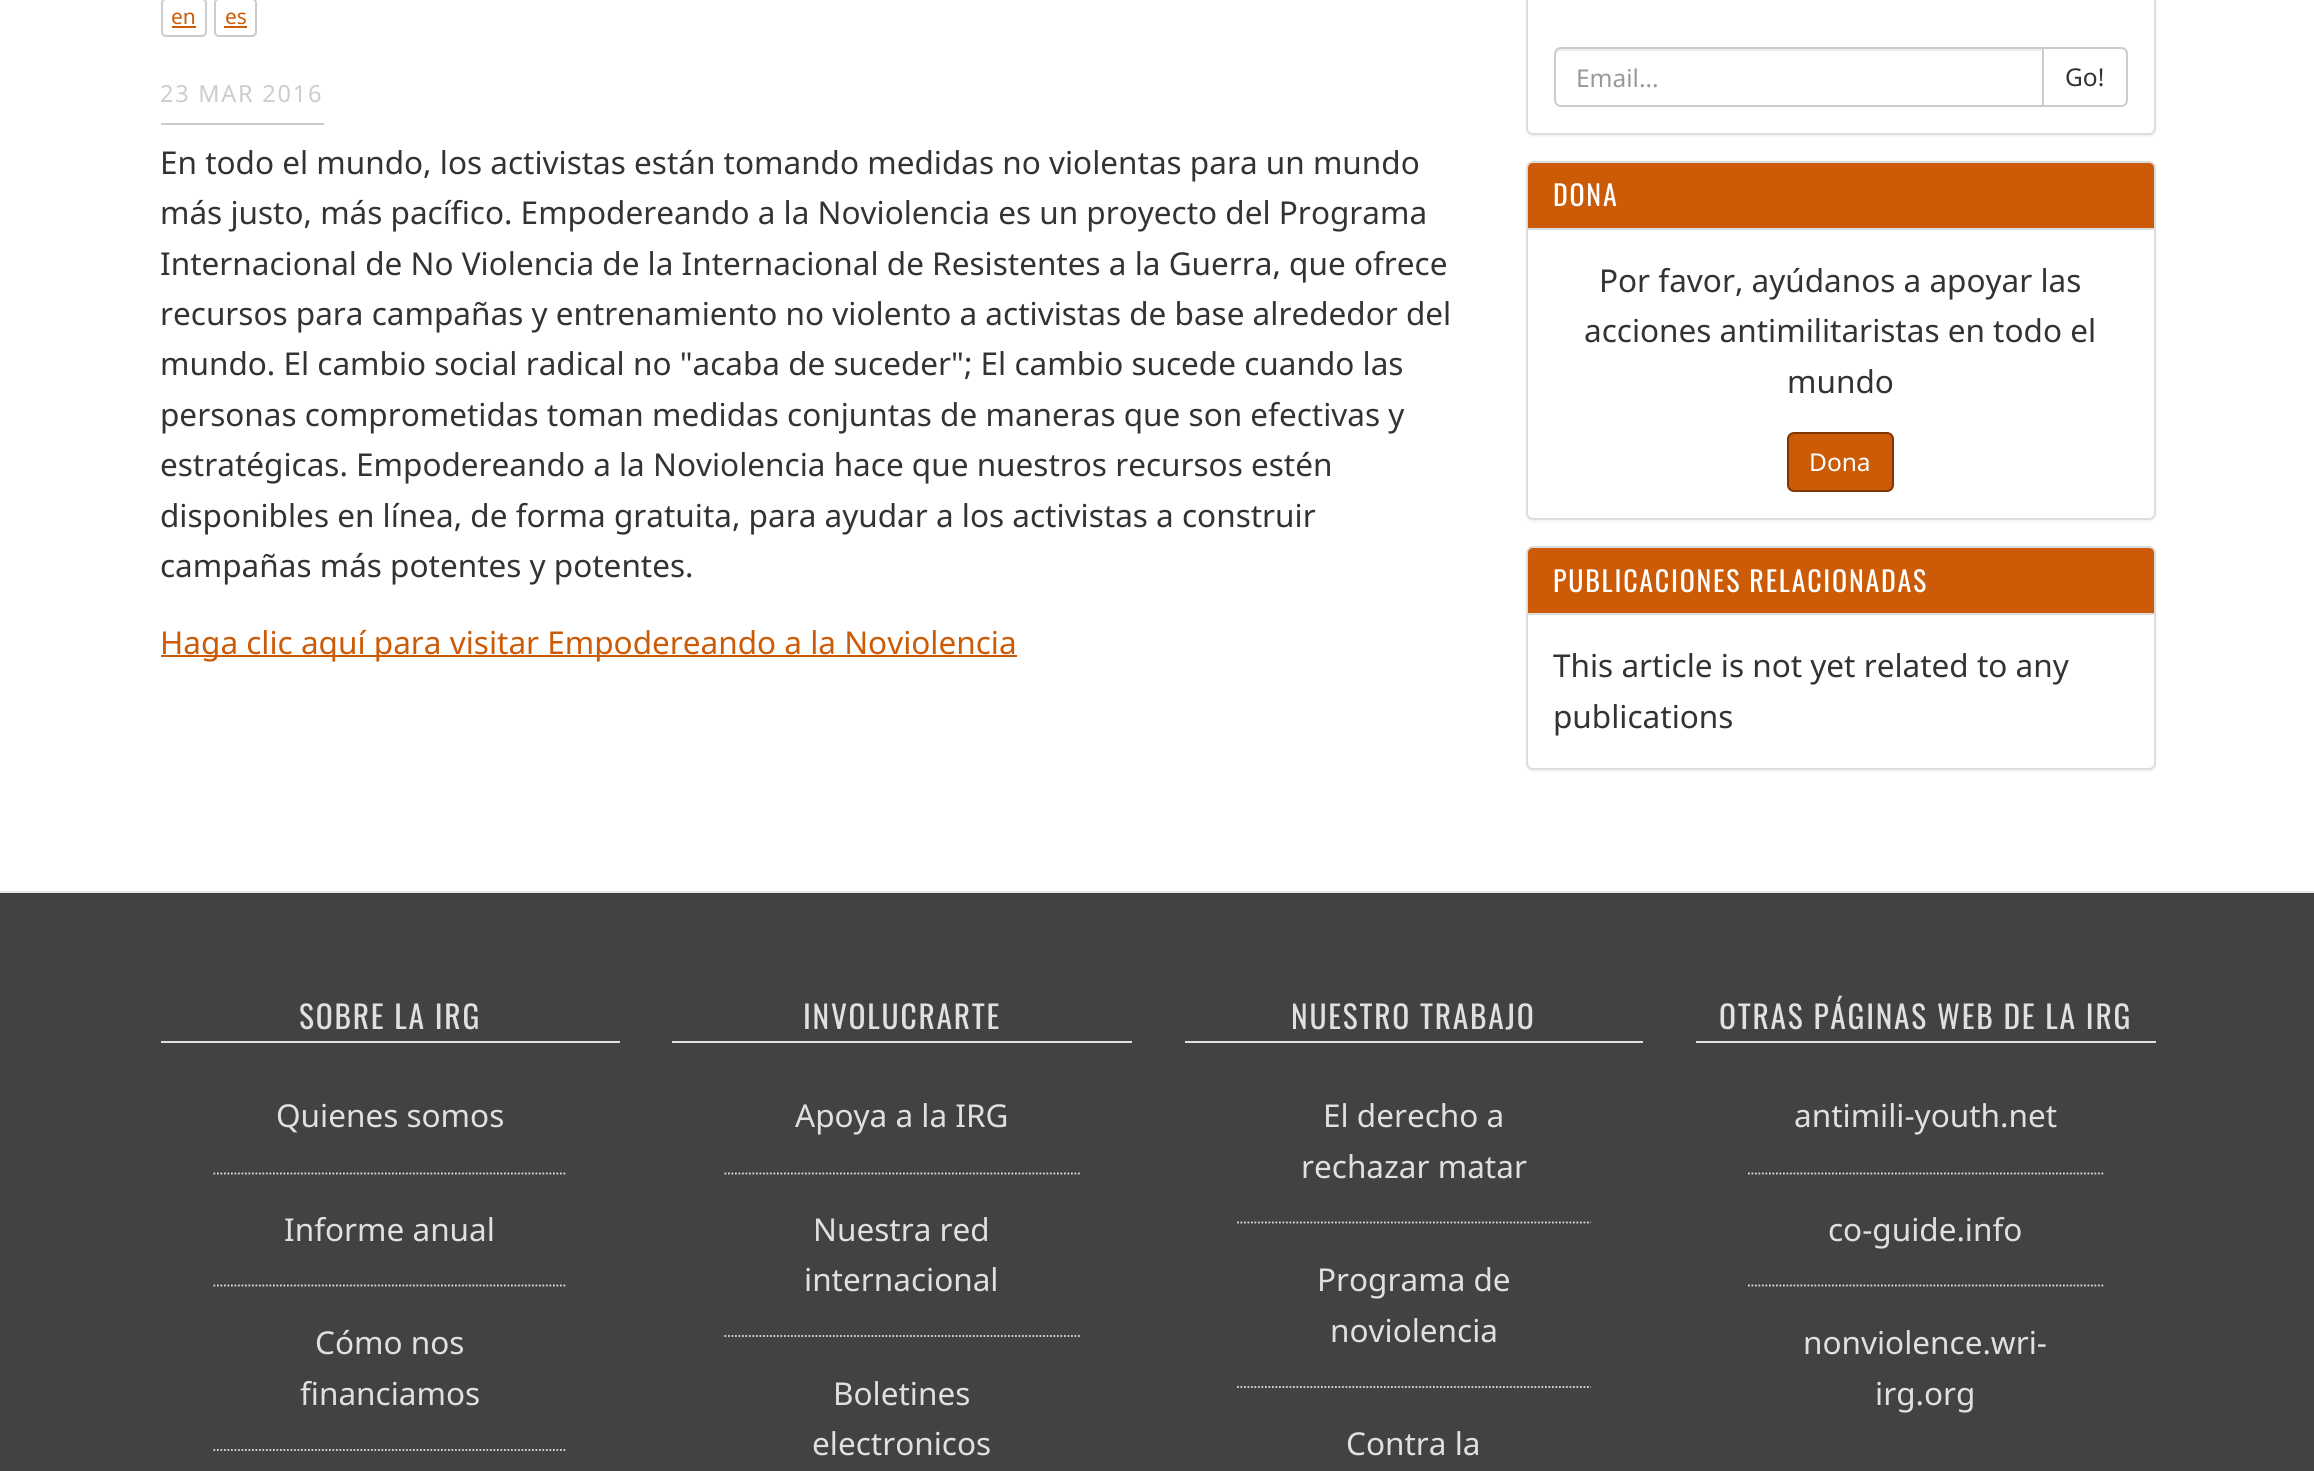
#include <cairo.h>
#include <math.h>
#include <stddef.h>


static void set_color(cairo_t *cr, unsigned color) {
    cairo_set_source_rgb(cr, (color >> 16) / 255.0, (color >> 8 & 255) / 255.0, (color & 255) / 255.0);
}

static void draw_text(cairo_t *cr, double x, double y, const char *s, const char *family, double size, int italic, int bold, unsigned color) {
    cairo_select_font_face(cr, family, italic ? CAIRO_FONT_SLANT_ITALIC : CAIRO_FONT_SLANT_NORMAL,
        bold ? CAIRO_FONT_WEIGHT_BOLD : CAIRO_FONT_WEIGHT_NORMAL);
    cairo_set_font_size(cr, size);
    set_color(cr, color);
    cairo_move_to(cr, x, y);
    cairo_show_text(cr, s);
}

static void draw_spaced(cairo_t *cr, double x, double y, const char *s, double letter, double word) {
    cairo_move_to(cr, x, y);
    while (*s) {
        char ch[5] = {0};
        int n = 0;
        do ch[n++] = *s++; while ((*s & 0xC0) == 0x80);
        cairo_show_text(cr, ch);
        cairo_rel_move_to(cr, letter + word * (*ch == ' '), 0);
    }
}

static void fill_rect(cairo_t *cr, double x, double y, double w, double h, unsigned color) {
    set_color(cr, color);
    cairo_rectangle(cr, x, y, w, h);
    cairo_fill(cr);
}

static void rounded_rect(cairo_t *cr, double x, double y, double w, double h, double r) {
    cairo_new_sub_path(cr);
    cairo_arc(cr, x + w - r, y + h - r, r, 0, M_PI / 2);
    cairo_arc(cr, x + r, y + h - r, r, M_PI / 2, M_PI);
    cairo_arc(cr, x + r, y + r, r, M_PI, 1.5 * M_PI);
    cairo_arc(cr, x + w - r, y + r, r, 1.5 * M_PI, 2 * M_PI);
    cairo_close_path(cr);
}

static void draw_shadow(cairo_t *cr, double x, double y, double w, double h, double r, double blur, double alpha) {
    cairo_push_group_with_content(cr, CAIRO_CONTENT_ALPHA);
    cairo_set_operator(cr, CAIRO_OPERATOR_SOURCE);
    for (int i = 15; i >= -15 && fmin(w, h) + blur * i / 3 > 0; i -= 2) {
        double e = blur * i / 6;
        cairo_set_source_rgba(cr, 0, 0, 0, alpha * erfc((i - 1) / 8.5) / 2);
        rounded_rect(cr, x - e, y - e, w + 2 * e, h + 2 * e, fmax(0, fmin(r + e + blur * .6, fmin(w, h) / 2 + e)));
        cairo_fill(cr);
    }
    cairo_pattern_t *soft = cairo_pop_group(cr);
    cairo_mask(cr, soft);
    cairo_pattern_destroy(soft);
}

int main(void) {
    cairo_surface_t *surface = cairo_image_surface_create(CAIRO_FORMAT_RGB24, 2314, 1471);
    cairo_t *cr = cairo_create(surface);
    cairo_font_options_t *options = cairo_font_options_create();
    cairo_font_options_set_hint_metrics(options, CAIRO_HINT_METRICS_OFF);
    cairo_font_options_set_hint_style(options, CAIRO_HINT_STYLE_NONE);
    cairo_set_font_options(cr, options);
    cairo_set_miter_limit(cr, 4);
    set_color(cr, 0xFFFFFF);
    cairo_paint(cr);
    rounded_rect(cr, 162, -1, 44, 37, 4);
    set_color(cr, 0xCCCCCC);
    cairo_stroke(cr);
    draw_text(cr, 171, 24, "en", "Noto Sans", 21, 0, 0, 0xCC5B07);
    fill_rect(cr, 172, 26, 24, 2, 0xCC5B07);
    rounded_rect(cr, 215, -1, 41, 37, 4);
    set_color(cr, 0xCCCCCC);
    cairo_stroke(cr);
    draw_text(cr, 225, 24, "es", "Noto Sans", 21, 0, 0, 0xCC5B07);
    fill_rect(cr, 224, 26, 23, 2, 0xCC5B07);
    fill_rect(cr, 161, 123, 163, 2, 0xCCCCCC);
    cairo_set_font_size(cr, 23.5);
    draw_spaced(cr, 160, 102, "23 MAR 2016", 1.75, 0);
    draw_text(cr, 160, 174, "En todo el mundo, los activistas están tomando medidas no violentas para un mundo", "Noto Sans", 31.5, 0, 0, 0x333333);
    draw_text(cr, 160, 224, "más justo, más pacífico. Empodereando a la Noviolencia es un proyecto del Programa", "Noto Sans", 31.5, 0, 0, 0x333333);
    draw_text(cr, 160, 275, "Internacional de No Violencia de la Internacional de Resistentes a la Guerra, que ofrece", "Noto Sans", 31.5, 0, 0, 0x333333);
    draw_text(cr, 160, 325, "recursos para campañas y entrenamiento no violento a activistas de base alrededor del", "Noto Sans", 31.5, 0, 0, 0x333333);
    draw_text(cr, 160, 375, "mundo. El cambio social radical no \"acaba de suceder\"; El cambio sucede cuando las", "Noto Sans", 31.5, 0, 0, 0x333333);
    draw_text(cr, 160, 426, "personas comprometidas toman medidas conjuntas de maneras que son efectivas y", "Noto Sans", 31.5, 0, 0, 0x333333);
    draw_text(cr, 160, 476, "estratégicas. Empodereando a la Noviolencia hace que nuestros recursos estén", "Noto Sans", 31.5, 0, 0, 0x333333);
    draw_text(cr, 160, 527, "disponibles en línea, de forma gratuita, para ayudar a los activistas a construir", "Noto Sans", 31.5, 0, 0, 0x333333);
    draw_text(cr, 160, 577, "campañas más potentes y potentes.", "Noto Sans", 31.5, 0, 0, 0x333333);
    fill_rect(cr, 161, 655, 856, 2, 0xCC5B07);
    draw_text(cr, 160, 654, "Haga clic aquí para visitar Empodereando a la Noviolencia", "Noto Sans", 31.5, 0, 0, 0xCC5B07);
    set_color(cr, 0x000000);
    draw_shadow(cr, 1526, -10, 630, 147, 7, 1, 0.05);
    set_color(cr, 0xFFFFFF);
    rounded_rect(cr, 1527, -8, 628, 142, 6);
    cairo_fill_preserve(cr);
    set_color(cr, 0xDDDDDD);
    cairo_stroke(cr);
    set_color(cr, 0xECECEC);
    cairo_new_path(cr);
    cairo_move_to(cr, 1561, 51);
    cairo_line_to(cr, 2042, 51);
    cairo_line_to(cr, 2042, 49);
    cairo_line_to(cr, 1561, 49);
    cairo_curve_to(cr, 1558, 49, 1556, 51, 1556, 54);
    cairo_line_to(cr, 1556, 56);
    cairo_curve_to(cr, 1556, 53, 1558, 51, 1561, 51);
    cairo_close_path(cr);
    cairo_fill(cr);
    cairo_new_path(cr);
    cairo_move_to(cr, 1561, 48);
    cairo_line_to(cr, 2043, 48);
    cairo_line_to(cr, 2043, 106);
    cairo_line_to(cr, 1561, 106);
    cairo_curve_to(cr, 1557.5, 106, 1555, 103.5, 1555, 100);
    cairo_line_to(cr, 1555, 54);
    cairo_curve_to(cr, 1555, 50.5, 1557.5, 48, 1561, 48);
    cairo_close_path(cr);
    set_color(cr, 0xCCCCCC);
    cairo_stroke(cr);
    draw_text(cr, 1576, 87, "Email...", "Noto Sans", 24.5, 0, 0, 0x999999);
    set_color(cr, 0xFFFFFF);
    cairo_new_path(cr);
    cairo_move_to(cr, 2043, 48);
    cairo_line_to(cr, 2121, 48);
    cairo_curve_to(cr, 2124.5, 48, 2127, 50.5, 2127, 54);
    cairo_line_to(cr, 2127, 100);
    cairo_curve_to(cr, 2127, 103.5, 2124.5, 106, 2121, 106);
    cairo_line_to(cr, 2043, 106);
    cairo_close_path(cr);
    cairo_fill_preserve(cr);
    set_color(cr, 0xCCCCCC);
    cairo_stroke(cr);
    draw_text(cr, 2065, 86, "Go!", "Noto Sans", 24.5, 0, 0, 0x333333);
    set_color(cr, 0x000000);
    draw_shadow(cr, 1526, 163, 630, 359, 7, 1, 0.05);
    set_color(cr, 0xFFFFFF);
    rounded_rect(cr, 1527, 162, 628, 357, 6);
    cairo_fill_preserve(cr);
    set_color(cr, 0xDDDDDD);
    cairo_stroke(cr);
    set_color(cr, 0xCC5B07);
    cairo_new_path(cr);
    cairo_move_to(cr, 1533, 163);
    cairo_line_to(cr, 2149, 163);
    cairo_curve_to(cr, 2152, 163, 2154, 165, 2154, 168);
    cairo_line_to(cr, 2154, 229);
    cairo_line_to(cr, 1528, 229);
    cairo_line_to(cr, 1528, 168);
    cairo_curve_to(cr, 1528, 165, 1530, 163, 1533, 163);
    cairo_close_path(cr);
    cairo_fill(cr);
    fill_rect(cr, 1528, 228, 626, 2, 0xDDDDDD);
    cairo_select_font_face(cr, "Oswald", CAIRO_FONT_SLANT_NORMAL, CAIRO_FONT_WEIGHT_NORMAL);
    cairo_set_font_size(cr, 28);
    set_color(cr, 0xFFFFFF);
    draw_spaced(cr, 1553, 206, "DONA", 1.75, 0);
    draw_text(cr, 1599, 292, "Por favor, ayúdanos a apoyar las", "Noto Sans", 31.5, 0, 0, 0x333333);
    draw_text(cr, 1584, 342, "acciones antimilitaristas en todo el", "Noto Sans", 31.5, 0, 0, 0x333333);
    draw_text(cr, 1787, 393, "mundo", "Noto Sans", 31.5, 0, 0, 0x333333);
    set_color(cr, 0xCC5B07);
    rounded_rect(cr, 1788, 433, 105, 58, 6);
    cairo_fill_preserve(cr);
    set_color(cr, 0x7F3600);
    cairo_stroke(cr);
    draw_text(cr, 1809, 471, "Dona", "Noto Sans", 24.5, 0, 0, 0xFFFFFF);
    set_color(cr, 0x000000);
    draw_shadow(cr, 1526, 548, 630, 224, 7, 1, 0.05);
    set_color(cr, 0xFFFFFF);
    rounded_rect(cr, 1527, 547, 628, 222, 6);
    cairo_fill_preserve(cr);
    set_color(cr, 0xDDDDDD);
    cairo_stroke(cr);
    set_color(cr, 0xCC5B07);
    cairo_new_path(cr);
    cairo_move_to(cr, 1533, 548);
    cairo_line_to(cr, 2149, 548);
    cairo_curve_to(cr, 2152, 548, 2154, 550, 2154, 553);
    cairo_line_to(cr, 2154, 614);
    cairo_line_to(cr, 1528, 614);
    cairo_line_to(cr, 1528, 553);
    cairo_curve_to(cr, 1528, 550, 1530, 548, 1533, 548);
    cairo_close_path(cr);
    cairo_fill(cr);
    fill_rect(cr, 1528, 613, 626, 2, 0xDDDDDD);
    cairo_select_font_face(cr, "Oswald", CAIRO_FONT_SLANT_NORMAL, CAIRO_FONT_WEIGHT_NORMAL);
    cairo_set_font_size(cr, 28);
    set_color(cr, 0xFFFFFF);
    draw_spaced(cr, 1553, 592, "PUBLICACIONES RELACIONADAS", 1.75, 0);
    draw_text(cr, 1553, 677, "This article is not yet related to any", "Noto Sans", 31.5, 0, 0, 0x333333);
    draw_text(cr, 1553, 728, "publications", "Noto Sans", 31.5, 0, 0, 0x333333);
    fill_rect(cr, 0, 893, 2314, 578, 0x424242);
    fill_rect(cr, 0, 891, 2314, 2, 0xE5E5E5);
    fill_rect(cr, 161, 1041, 459, 2, 0xE0E0E0);
    cairo_select_font_face(cr, "Oswald", CAIRO_FONT_SLANT_NORMAL, CAIRO_FONT_WEIGHT_NORMAL);
    draw_spaced(cr, 299, 1029, "SOBRE LA IRG", 1.75, 0);
    cairo_new_path(cr);
    cairo_move_to(cr, 213.5, 1173.5);
    cairo_line_to(cr, 567, 1173.5);
    cairo_set_line_width(cr, 1.8);
    cairo_set_dash(cr, (double[]){1.75, 1.75}, 2, 0);
    cairo_stroke(cr);
    draw_text(cr, 276, 1127, "Quienes somos", "Noto Sans", 31.5, 0, 0, 0xE0E0E0);
    cairo_new_path(cr);
    cairo_move_to(cr, 213.5, 1285.5);
    cairo_line_to(cr, 567, 1285.5);
    cairo_stroke(cr);
    draw_text(cr, 284, 1241, "Informe anual", "Noto Sans", 31.5, 0, 0, 0xE0E0E0);
    cairo_new_path(cr);
    cairo_move_to(cr, 213.5, 1450);
    cairo_line_to(cr, 567, 1450);
    cairo_stroke(cr);
    draw_text(cr, 315, 1354, "Cómo nos", "Noto Sans", 31.5, 0, 0, 0xE0E0E0);
    draw_text(cr, 300, 1405, "financiamos", "Noto Sans", 31.5, 0, 0, 0xE0E0E0);
    fill_rect(cr, 672, 1041, 460, 2, 0xE0E0E0);
    cairo_select_font_face(cr, "Oswald", CAIRO_FONT_SLANT_NORMAL, CAIRO_FONT_WEIGHT_NORMAL);
    draw_spaced(cr, 803, 1029, "INVOLUCRARTE", 1.75, 0);
    cairo_new_path(cr);
    cairo_move_to(cr, 724.5, 1173.5);
    cairo_line_to(cr, 1080, 1173.5);
    cairo_stroke(cr);
    draw_text(cr, 795, 1127, "Apoya a la IRG", "Noto Sans", 31.5, 0, 0, 0xE0E0E0);
    cairo_new_path(cr);
    cairo_move_to(cr, 724.5, 1336);
    cairo_line_to(cr, 1080, 1336);
    cairo_stroke(cr);
    draw_text(cr, 813, 1241, "Nuestra red", "Noto Sans", 31.5, 0, 0, 0xE0E0E0);
    draw_text(cr, 804, 1291, "internacional", "Noto Sans", 31.5, 0, 0, 0xE0E0E0);
    draw_text(cr, 833, 1405, "Boletines", "Noto Sans", 31.5, 0, 0, 0xE0E0E0);
    draw_text(cr, 812, 1455, "electronicos", "Noto Sans", 31.5, 0, 0, 0xE0E0E0);
    fill_rect(cr, 1185, 1041, 458, 2, 0xE0E0E0);
    cairo_select_font_face(cr, "Oswald", CAIRO_FONT_SLANT_NORMAL, CAIRO_FONT_WEIGHT_NORMAL);
    draw_spaced(cr, 1291, 1029, "NUESTRO TRABAJO", 1.75, 0);
    cairo_new_path(cr);
    cairo_move_to(cr, 1237, 1222.5);
    cairo_line_to(cr, 1591, 1222.5);
    cairo_stroke(cr);
    draw_text(cr, 1323, 1127, "El derecho a", "Noto Sans", 31.5, 0, 0, 0xE0E0E0);
    draw_text(cr, 1301, 1178, "rechazar matar", "Noto Sans", 31.5, 0, 0, 0xE0E0E0);
    cairo_new_path(cr);
    cairo_move_to(cr, 1237, 1387);
    cairo_line_to(cr, 1591, 1387);
    cairo_stroke(cr);
    draw_text(cr, 1317, 1291, "Programa de", "Noto Sans", 31.5, 0, 0, 0xE0E0E0);
    draw_text(cr, 1330, 1342, "noviolencia", "Noto Sans", 31.5, 0, 0, 0xE0E0E0);
    draw_text(cr, 1346, 1455, "Contra la", "Noto Sans", 31.5, 0, 0, 0xE0E0E0);
    fill_rect(cr, 1696, 1041, 460, 2, 0xE0E0E0);
    cairo_select_font_face(cr, "Oswald", CAIRO_FONT_SLANT_NORMAL, CAIRO_FONT_WEIGHT_NORMAL);
    draw_spaced(cr, 1719, 1029, "OTRAS PÁGINAS WEB DE LA IRG", 1.75, 0);
    cairo_new_path(cr);
    cairo_move_to(cr, 1748, 1173.5);
    cairo_line_to(cr, 2103.5, 1173.5);
    cairo_stroke(cr);
    draw_text(cr, 1794, 1127, "antimili-youth.net", "Noto Sans", 31.5, 0, 0, 0xE0E0E0);
    cairo_new_path(cr);
    cairo_move_to(cr, 1748, 1285.5);
    cairo_line_to(cr, 2103.5, 1285.5);
    cairo_stroke(cr);
    draw_text(cr, 1828, 1241, "co-guide.info", "Noto Sans", 31.5, 0, 0, 0xE0E0E0);
    draw_text(cr, 1803, 1354, "nonviolence.wri-", "Noto Sans", 31.5, 0, 0, 0xE0E0E0);
    draw_text(cr, 1875, 1405, "irg.org", "Noto Sans", 31.5, 0, 0, 0xE0E0E0);
    cairo_surface_write_to_png(surface, "output.png");
    cairo_font_options_destroy(options);
    cairo_destroy(cr);
    cairo_surface_destroy(surface);
    return 0;
}
